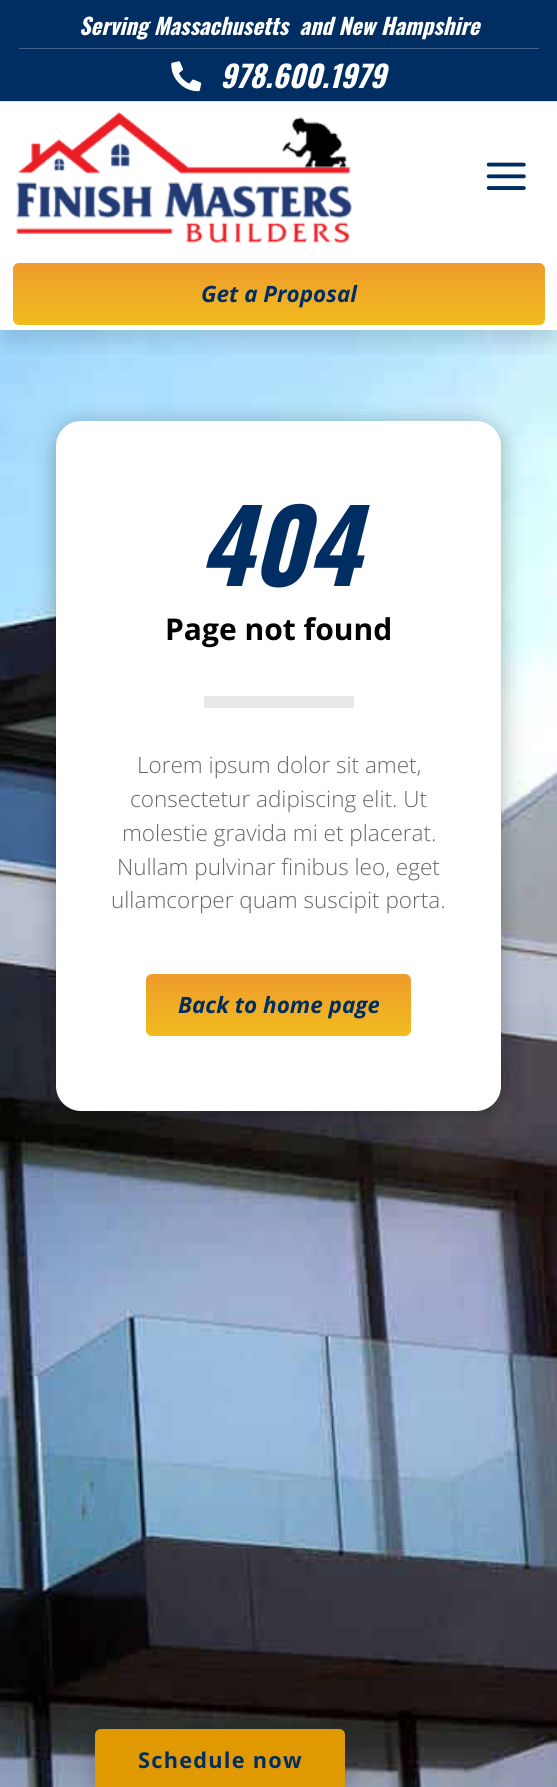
#include <cairo.h>
#include <math.h>
#include <stddef.h>


static void set_color(cairo_t *cr, unsigned color) {
    cairo_set_source_rgb(cr, (color >> 16) / 255.0, (color >> 8 & 255) / 255.0, (color & 255) / 255.0);
}

static void draw_text(cairo_t *cr, double x, double y, const char *s, const char *family, double size, int italic, int bold, unsigned color) {
    cairo_select_font_face(cr, family, italic ? CAIRO_FONT_SLANT_ITALIC : CAIRO_FONT_SLANT_NORMAL,
        bold ? CAIRO_FONT_WEIGHT_BOLD : CAIRO_FONT_WEIGHT_NORMAL);
    cairo_set_font_size(cr, size);
    set_color(cr, color);
    cairo_move_to(cr, x, y);
    cairo_show_text(cr, s);
}

static void draw_spaced(cairo_t *cr, double x, double y, const char *s, double letter, double word) {
    cairo_move_to(cr, x, y);
    while (*s) {
        char ch[5] = {0};
        int n = 0;
        do ch[n++] = *s++; while ((*s & 0xC0) == 0x80);
        cairo_show_text(cr, ch);
        cairo_rel_move_to(cr, letter + word * (*ch == ' '), 0);
    }
}

static void fill_rect(cairo_t *cr, double x, double y, double w, double h, unsigned color) {
    set_color(cr, color);
    cairo_rectangle(cr, x, y, w, h);
    cairo_fill(cr);
}

static void rounded_rect(cairo_t *cr, double x, double y, double w, double h, double r) {
    cairo_new_sub_path(cr);
    cairo_arc(cr, x + w - r, y + h - r, r, 0, M_PI / 2);
    cairo_arc(cr, x + r, y + h - r, r, M_PI / 2, M_PI);
    cairo_arc(cr, x + r, y + r, r, M_PI, 1.5 * M_PI);
    cairo_arc(cr, x + w - r, y + r, r, 1.5 * M_PI, 2 * M_PI);
    cairo_close_path(cr);
}

static void draw_shadow(cairo_t *cr, double x, double y, double w, double h, double r, double blur, double alpha) {
    cairo_push_group_with_content(cr, CAIRO_CONTENT_ALPHA);
    cairo_set_operator(cr, CAIRO_OPERATOR_SOURCE);
    for (int i = 15; i >= -15 && fmin(w, h) + blur * i / 3 > 0; i -= 2) {
        double e = blur * i / 6;
        cairo_set_source_rgba(cr, 0, 0, 0, alpha * erfc((i - 1) / 8.5) / 2);
        rounded_rect(cr, x - e, y - e, w + 2 * e, h + 2 * e, fmax(0, fmin(r + e + blur * .6, fmin(w, h) / 2 + e)));
        cairo_fill(cr);
    }
    cairo_pattern_t *soft = cairo_pop_group(cr);
    cairo_mask(cr, soft);
    cairo_pattern_destroy(soft);
}

static void draw_image(cairo_t *cr, const char *path, double x, double y, double w, double h) {
    cairo_surface_t *image = cairo_image_surface_create_from_png(path);
    cairo_save(cr);
    cairo_set_source_surface(cr, image, x, y);
    cairo_rectangle(cr, x, y, w, h);
    cairo_fill(cr);
    cairo_restore(cr);
    cairo_surface_destroy(image);
}

int main(void) {
    cairo_surface_t *surface = cairo_image_surface_create(CAIRO_FORMAT_RGB24, 557, 1787);
    cairo_t *cr = cairo_create(surface);
    cairo_font_options_t *options = cairo_font_options_create();
    cairo_font_options_set_hint_metrics(options, CAIRO_HINT_METRICS_OFF);
    cairo_font_options_set_hint_style(options, CAIRO_HINT_STYLE_NONE);
    cairo_set_font_options(cr, options);
    cairo_set_miter_limit(cr, 4);
    cairo_pattern_t *gradient;
    set_color(cr, 0xFFFFFF);
    cairo_paint(cr);
    fill_rect(cr, 0, 0, 557, 101, 0x002E62);
    fill_rect(cr, 0, 101, 557, 1, 0xE0E0E0);
    fill_rect(cr, 19, 48, 520, 1, 0x406289);
    draw_text(cr, 79, 35, "Serving Massachusetts  and New Hampshire", "Oswald", 22.5, 1, 1, 0xFFFFFF);
    draw_image(cr, "assets/img1.png", 171, 61, 31, 31);
    draw_text(cr, 220, 88, "978.600.1979", "Oswald", 30, 1, 1, 0xFFFFFF);
    draw_image(cr, "assets/img4.png", 0, 330, 557, 1457);
    cairo_save(cr);
    cairo_rectangle(cr, 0, 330, 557, 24);
    cairo_clip(cr);
    set_color(cr, 0x000000);
    draw_shadow(cr, 8, 125, 542, 213, 0, 14, 0.16);
    cairo_restore(cr);
    draw_image(cr, "assets/img2.png", 16, 112, 336, 131);
    draw_image(cr, "assets/img3.png", 486, 162, 40, 28);
    gradient = cairo_pattern_create_linear(279, 262, 279, 325);
    cairo_pattern_add_color_stop_rgba(gradient, 0, 0.937, 0.608, 0.176, 1);
    cairo_pattern_add_color_stop_rgba(gradient, 1, 0.945, 0.737, 0.118, 1);
    cairo_set_source(cr, gradient);
    cairo_pattern_destroy(gradient);
    rounded_rect(cr, 13, 263, 532, 62, 6);
    cairo_fill(cr);
    draw_text(cr, 201, 302, "Get a Proposal", "Open Sans", 22.5, 1, 1, 0x002E62);
    set_color(cr, 0x000000);
    draw_shadow(cr, 56, 424, 445, 690, 25, 11, 0.3);
    set_color(cr, 0xFFFFFF);
    rounded_rect(cr, 56, 421, 445, 690, 25);
    cairo_fill(cr);
    draw_text(cr, 199, 586, "404", "Oswald", 100, 1, 1, 0x002E62);
    draw_text(cr, 165, 640, "Page not found", "Open Sans", 30, 0, 1, 0x000000);
    fill_rect(cr, 204, 696, 150, 12, 0xE8E8E8);
    draw_text(cr, 137, 773, "Lorem ipsum dolor sit amet,", "Open Sans Light", 22.5, 0, 0, 0x666666);
    draw_text(cr, 130, 807, "consectetur adipiscing elit. Ut", "Open Sans Light", 22.5, 0, 0, 0x666666);
    draw_text(cr, 122, 841, "molestie gravida mi et placerat.", "Open Sans Light", 22.5, 0, 0, 0x666666);
    draw_text(cr, 117, 875, "Nullam pulvinar finibus leo, eget", "Open Sans Light", 22.5, 0, 0, 0x666666);
    draw_text(cr, 111, 908, "ullamcorper quam suscipit porta.", "Open Sans Light", 22.5, 0, 0, 0x666666);
    gradient = cairo_pattern_create_linear(279, 974, 279, 1036);
    cairo_pattern_add_color_stop_rgba(gradient, 0, 0.937, 0.608, 0.176, 1);
    cairo_pattern_add_color_stop_rgba(gradient, 1, 0.945, 0.737, 0.118, 1);
    cairo_set_source(cr, gradient);
    cairo_pattern_destroy(gradient);
    rounded_rect(cr, 146, 974, 265, 62, 6);
    cairo_fill(cr);
    draw_text(cr, 178, 1013, "Back to home page", "Open Sans", 22.5, 1, 1, 0x002E62);
    set_color(cr, 0x000000);
    draw_shadow(cr, 95, 1729, 250, 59, 6, 12.5, 0.25);
    set_color(cr, 0xE09900);
    cairo_new_path(cr);
    cairo_move_to(cr, 101, 1729);
    cairo_line_to(cr, 339, 1729);
    cairo_curve_to(cr, 342.5, 1729, 345, 1731.5, 345, 1735);
    cairo_line_to(cr, 345, 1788);
    cairo_line_to(cr, 95, 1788);
    cairo_line_to(cr, 95, 1735);
    cairo_curve_to(cr, 95, 1731.5, 97.5, 1729, 101, 1729);
    cairo_close_path(cr);
    cairo_fill(cr);
    cairo_select_font_face(cr, "Open Sans", CAIRO_FONT_SLANT_NORMAL, CAIRO_FONT_WEIGHT_BOLD);
    cairo_set_font_size(cr, 21.75);
    set_color(cr, 0x002E62);
    draw_spaced(cr, 138, 1768, "Schedule now", 1.25, 0);
    cairo_surface_write_to_png(surface, "output.png");
    cairo_font_options_destroy(options);
    cairo_destroy(cr);
    cairo_surface_destroy(surface);
    return 0;
}
